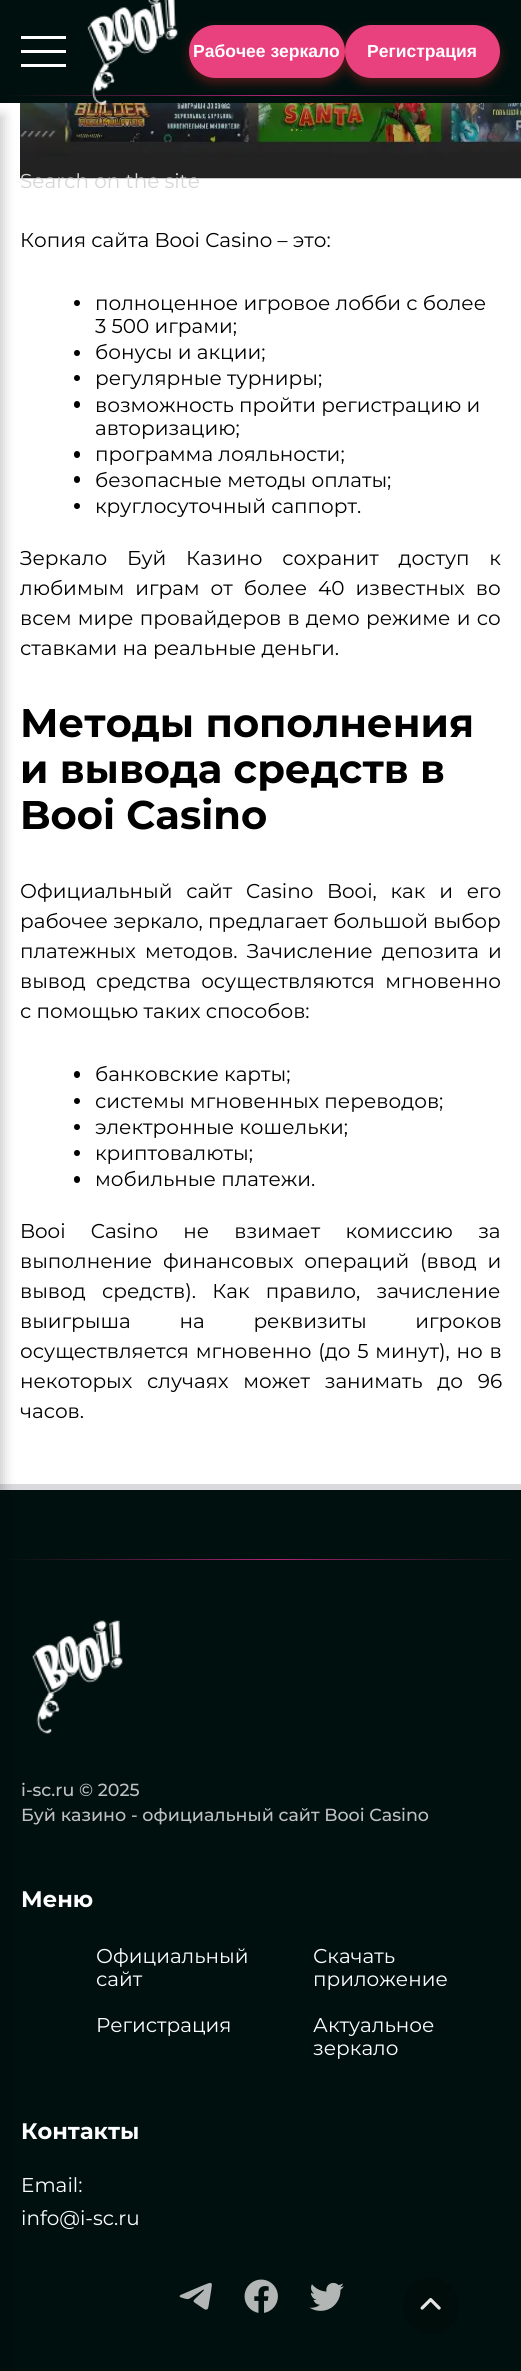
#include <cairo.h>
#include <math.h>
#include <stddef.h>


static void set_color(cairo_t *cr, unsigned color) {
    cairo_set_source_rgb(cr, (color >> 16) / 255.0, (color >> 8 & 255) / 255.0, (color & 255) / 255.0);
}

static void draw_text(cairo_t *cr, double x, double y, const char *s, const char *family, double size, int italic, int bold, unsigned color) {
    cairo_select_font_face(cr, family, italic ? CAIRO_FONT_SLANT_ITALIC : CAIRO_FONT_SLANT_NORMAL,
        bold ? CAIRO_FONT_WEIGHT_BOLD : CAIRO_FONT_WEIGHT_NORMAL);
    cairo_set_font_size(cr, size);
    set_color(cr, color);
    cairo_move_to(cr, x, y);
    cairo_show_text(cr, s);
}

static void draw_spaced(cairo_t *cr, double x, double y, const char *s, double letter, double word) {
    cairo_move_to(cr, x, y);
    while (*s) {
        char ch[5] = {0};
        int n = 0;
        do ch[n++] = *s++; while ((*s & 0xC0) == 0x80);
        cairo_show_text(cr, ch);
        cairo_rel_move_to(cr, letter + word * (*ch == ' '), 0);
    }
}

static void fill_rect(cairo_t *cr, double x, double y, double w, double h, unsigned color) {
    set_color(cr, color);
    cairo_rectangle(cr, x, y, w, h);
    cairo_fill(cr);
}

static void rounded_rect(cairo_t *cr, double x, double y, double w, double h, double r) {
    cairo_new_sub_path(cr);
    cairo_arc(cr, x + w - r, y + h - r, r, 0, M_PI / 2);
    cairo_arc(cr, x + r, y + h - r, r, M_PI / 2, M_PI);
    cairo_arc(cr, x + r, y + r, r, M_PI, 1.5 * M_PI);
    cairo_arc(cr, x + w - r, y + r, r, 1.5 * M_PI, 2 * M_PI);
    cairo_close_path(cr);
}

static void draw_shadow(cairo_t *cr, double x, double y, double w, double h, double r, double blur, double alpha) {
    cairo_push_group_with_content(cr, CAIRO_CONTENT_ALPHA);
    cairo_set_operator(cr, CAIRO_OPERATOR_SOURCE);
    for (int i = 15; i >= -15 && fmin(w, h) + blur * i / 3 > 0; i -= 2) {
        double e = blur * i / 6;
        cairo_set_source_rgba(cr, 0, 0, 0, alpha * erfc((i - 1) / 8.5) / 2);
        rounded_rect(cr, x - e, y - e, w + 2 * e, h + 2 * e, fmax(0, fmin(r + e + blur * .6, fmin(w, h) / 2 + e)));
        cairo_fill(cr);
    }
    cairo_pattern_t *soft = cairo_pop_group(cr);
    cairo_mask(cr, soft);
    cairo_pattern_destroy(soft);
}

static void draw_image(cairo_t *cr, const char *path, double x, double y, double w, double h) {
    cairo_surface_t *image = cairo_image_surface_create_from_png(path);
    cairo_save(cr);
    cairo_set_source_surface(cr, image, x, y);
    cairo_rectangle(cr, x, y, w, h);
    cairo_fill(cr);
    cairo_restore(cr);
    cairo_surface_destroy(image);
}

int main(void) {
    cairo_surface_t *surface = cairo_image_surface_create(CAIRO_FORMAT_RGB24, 521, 2371);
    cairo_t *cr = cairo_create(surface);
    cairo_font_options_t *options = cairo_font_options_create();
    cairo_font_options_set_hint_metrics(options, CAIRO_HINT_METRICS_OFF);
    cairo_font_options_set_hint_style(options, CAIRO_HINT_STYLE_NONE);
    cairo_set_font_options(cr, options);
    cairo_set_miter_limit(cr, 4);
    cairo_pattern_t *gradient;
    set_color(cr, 0x00100E);
    cairo_paint(cr);
    fill_rect(cr, 21, 36, 45, 3, 0xFFFFFF);
    fill_rect(cr, 21, 50, 45, 3, 0xFFFFFF);
    fill_rect(cr, 21, 64, 45, 3, 0xFFFFFF);
    fill_rect(cr, 0, 103, 521, 1381, 0xFFFFFF);
    draw_image(cr, "assets/img2.png", 20, 103, 501, 76);
    draw_image(cr, "assets/img1.png", 87, 0, 91, 105);
    set_color(cr, 0xFE2C2C);
    draw_shadow(cr, 189, 30, 156, 53, 26.5, 5, 0.3);
    set_color(cr, 0xE9417D);
    rounded_rect(cr, 189, 25, 156, 53, 26.5);
    cairo_fill(cr);
    draw_text(cr, 193, 57, "Рабочее зеркало", "Liberation Sans", 17.5, 0, 1, 0xFFFFFF);
    set_color(cr, 0xFE2C2C);
    draw_shadow(cr, 345, 30, 155, 53, 26.5, 5, 0.3);
    set_color(cr, 0xE9417D);
    rounded_rect(cr, 345, 25, 155, 53, 26.5);
    cairo_fill(cr);
    draw_text(cr, 367, 57, "Регистрация", "Liberation Sans", 17.5, 0, 1, 0xFFFFFF);
    fill_rect(cr, 0, 1484, 521, 6, 0xDADADD);
    gradient = cairo_pattern_create_linear(0, 1559, 521, 1559);
    cairo_pattern_add_color_stop_rgba(gradient, 0, 0, 0.063, 0.055, 1);
    cairo_pattern_add_color_stop_rgba(gradient, 0.28, 0.349, 0.102, 0.255, 1);
    cairo_pattern_add_color_stop_rgba(gradient, 0.53, 0.698, 0.141, 0.459, 1);
    cairo_pattern_add_color_stop_rgba(gradient, 0.74, 0.349, 0.102, 0.255, 1);
    cairo_pattern_add_color_stop_rgba(gradient, 1, 0, 0.063, 0.055, 1);
    cairo_set_source(cr, gradient);
    cairo_pattern_destroy(gradient);
    cairo_rectangle(cr, 0, 1559, 521, 1);
    cairo_fill(cr);
    set_color(cr, 0x000000);
    draw_shadow(cr, -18, 115, 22, 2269, 0, 6, 0.2);
    gradient = cairo_pattern_create_linear(0, 96, 521, 96);
    cairo_pattern_add_color_stop_rgba(gradient, 0, 0.996, 0.173, 0.631, 0);
    cairo_pattern_add_color_stop_rgba(gradient, 0.28, 0.996, 0.173, 0.631, 0.35);
    cairo_pattern_add_color_stop_rgba(gradient, 0.53, 0.996, 0.173, 0.631, 0.7);
    cairo_pattern_add_color_stop_rgba(gradient, 0.74, 0.996, 0.173, 0.631, 0.35);
    cairo_pattern_add_color_stop_rgba(gradient, 1, 0.996, 0.173, 0.631, 0);
    cairo_set_source(cr, gradient);
    cairo_pattern_destroy(gradient);
    cairo_rectangle(cr, 9, 95, 512, 1);
    cairo_fill(cr);
    draw_text(cr, 20, 188, "Search on the site", "Montserrat", 20, 0, 0, 0xD6D6D6);
    draw_text(cr, 20, 247, "Копия сайта Booi Casino – это:", "Montserrat", 20, 0, 0, 0x000000);
    cairo_new_path(cr);
    cairo_arc(cr, 77, 303, 3, 0, 2 * M_PI);
    cairo_fill(cr);
    draw_text(cr, 95, 310, "полноценное игровое лобби с более", "Montserrat", 20, 0, 0, 0x000000);
    draw_text(cr, 95, 333, "3 500 играми;", "Montserrat", 20, 0, 0, 0x000000);
    cairo_new_path(cr);
    cairo_arc(cr, 77, 353, 3, 0, 2 * M_PI);
    cairo_fill(cr);
    draw_text(cr, 95, 359, "бонусы и акции;", "Montserrat", 20, 0, 0, 0x000000);
    cairo_new_path(cr);
    cairo_arc(cr, 77, 378, 3, 0, 2 * M_PI);
    cairo_fill(cr);
    draw_text(cr, 95, 385, "регулярные турниры;", "Montserrat", 20, 0, 0, 0x000000);
    rounded_rect(cr, 74, 401, 6, 7, 3);
    cairo_fill(cr);
    draw_text(cr, 95, 412, "возможность пройти регистрацию и", "Montserrat", 20, 0, 0, 0x000000);
    draw_text(cr, 95, 435, "авторизацию;", "Montserrat", 20, 0, 0, 0x000000);
    rounded_rect(cr, 74, 451, 6, 7, 3);
    cairo_fill(cr);
    draw_text(cr, 95, 461, "программа лояльности;", "Montserrat", 20, 0, 0, 0x000000);
    rounded_rect(cr, 74, 476, 6, 7, 3);
    cairo_fill(cr);
    draw_text(cr, 95, 487, "безопасные методы оплаты;", "Montserrat", 20, 0, 0, 0x000000);
    cairo_new_path(cr);
    cairo_arc(cr, 77, 506, 3, 0, 2 * M_PI);
    cairo_fill(cr);
    draw_text(cr, 95, 513, "круглосуточный саппорт.", "Montserrat", 20, 0, 0, 0x000000);
    draw_spaced(cr, 20, 565, "Зеркало Буй Казино сохранит доступ к", 0, 14.5);
    draw_spaced(cr, 20, 595, "любимым играм от более 40 известных во", 0, 5.75);
    draw_spaced(cr, 20, 625, "всем мире провайдеров в демо режиме и со", 0, 1);
    draw_text(cr, 20, 655, "ставками на реальные деньги.", "Montserrat", 20, 0, 0, 0x000000);
    draw_text(cr, 20, 737, "Методы пополнения", "Montserrat", 40, 0, 1, 0x000000);
    draw_text(cr, 20, 783, "и вывода средств в", "Montserrat", 40, 0, 1, 0x000000);
    draw_text(cr, 20, 829, "Booi Casino", "Montserrat", 40, 0, 1, 0x000000);
    cairo_select_font_face(cr, "Montserrat", CAIRO_FONT_SLANT_NORMAL, CAIRO_FONT_WEIGHT_NORMAL);
    cairo_set_font_size(cr, 20);
    draw_spaced(cr, 20, 898, "Официальный сайт Casino Booi, как и его", 0, 8.5);
    draw_text(cr, 20, 928, "рабочее зеркало, предлагает большой выбор", "Montserrat", 20, 0, 0, 0x000000);
    draw_spaced(cr, 20, 958, "платежных методов. Зачисление депозита и", 0, 4);
    draw_spaced(cr, 20, 988, "вывод средства осуществляются мгновенно", 0, 5);
    draw_text(cr, 20, 1018, "с помощью таких способов:", "Montserrat", 20, 0, 0, 0x000000);
    rounded_rect(cr, 74, 1071, 6, 7, 3);
    cairo_fill(cr);
    draw_text(cr, 95, 1081, "банковские карты;", "Montserrat", 20, 0, 0, 0x000000);
    cairo_new_path(cr);
    cairo_arc(cr, 77, 1101, 3, 0, 2 * M_PI);
    cairo_fill(cr);
    draw_text(cr, 95, 1108, "системы мгновенных переводов;", "Montserrat", 20, 0, 0, 0x000000);
    cairo_new_path(cr);
    cairo_arc(cr, 77, 1127, 3, 0, 2 * M_PI);
    cairo_fill(cr);
    draw_text(cr, 95, 1134, "электронные кошельки;", "Montserrat", 20, 0, 0, 0x000000);
    cairo_new_path(cr);
    cairo_arc(cr, 77, 1153, 3, 0, 2 * M_PI);
    cairo_fill(cr);
    draw_text(cr, 95, 1160, "криптовалюты;", "Montserrat", 20, 0, 0, 0x000000);
    rounded_rect(cr, 74, 1176, 6, 7, 3);
    cairo_fill(cr);
    draw_text(cr, 95, 1186, "мобильные платежи.", "Montserrat", 20, 0, 0, 0x000000);
    draw_spaced(cr, 20, 1238, "Booi Casino не взимает комиссию за", 0, 20);
    draw_spaced(cr, 20, 1268, "выполнение финансовых операций (ввод и", 0, 5.5);
    draw_spaced(cr, 20, 1298, "вывод средств). Как правило, зачисление", 0, 11);
    draw_spaced(cr, 20, 1328, "выигрыша на реквизиты игроков", 0, 43.5);
    draw_spaced(cr, 20, 1358, "осуществляется мгновенно (до 5 минут), но в", 0, 1.5);
    draw_spaced(cr, 20, 1388, "некоторых случаях может занимать до 96", 0, 9.5);
    draw_text(cr, 20, 1418, "часов.", "Montserrat", 20, 0, 0, 0x000000);
    draw_image(cr, "assets/img3.png", 32, 1620, 91, 114);
    draw_text(cr, 21, 1796, "i-sc.ru © 2025", "Montserrat Medium", 17.5, 0, 0, 0xC0C0C2);
    draw_text(cr, 21, 1821, "Буй казино - официальный сайт Booi Casino", "Montserrat Medium", 17.5, 0, 0, 0xC0C0C2);
    draw_text(cr, 21, 1907, "Меню", "Montserrat", 22.5, 0, 1, 0xFFFFFF);
    draw_text(cr, 96, 1963, "Официальный", "Montserrat", 20, 0, 0, 0xFFFFFF);
    draw_text(cr, 96, 1986, "сайт", "Montserrat", 20, 0, 0, 0xFFFFFF);
    draw_text(cr, 313, 1963, "Скачать", "Montserrat", 20, 0, 0, 0xFFFFFF);
    draw_text(cr, 313, 1986, "приложение", "Montserrat", 20, 0, 0, 0xFFFFFF);
    draw_text(cr, 96, 2032, "Регистрация", "Montserrat", 20, 0, 0, 0xFFFFFF);
    draw_text(cr, 313, 2032, "Актуальное", "Montserrat", 20, 0, 0, 0xFFFFFF);
    draw_text(cr, 313, 2055, "зеркало", "Montserrat", 20, 0, 0, 0xFFFFFF);
    draw_text(cr, 21, 2139, "Контакты", "Montserrat", 22.5, 0, 1, 0xFFFFFF);
    draw_text(cr, 21, 2192, "Email:", "Montserrat", 20, 0, 0, 0xFFFFFF);
    draw_text(cr, 21, 2225, "info@i-sc.ru", "Montserrat", 20, 0, 0, 0xFFFFFF);
    draw_image(cr, "assets/img4.png", 179, 2282, 33, 28);
    draw_image(cr, "assets/img5.png", 244, 2279, 34, 34);
    draw_image(cr, "assets/img6.png", 309, 2282, 35, 29);
    set_color(cr, 0x000D0B);
    cairo_arc(cr, 431, 2306, 28, 0, 2 * M_PI);
    cairo_fill(cr);
    draw_image(cr, "assets/img7.png", 420, 2298, 21, 12);
    cairo_surface_write_to_png(surface, "output.png");
    cairo_font_options_destroy(options);
    cairo_destroy(cr);
    cairo_surface_destroy(surface);
    return 0;
}
